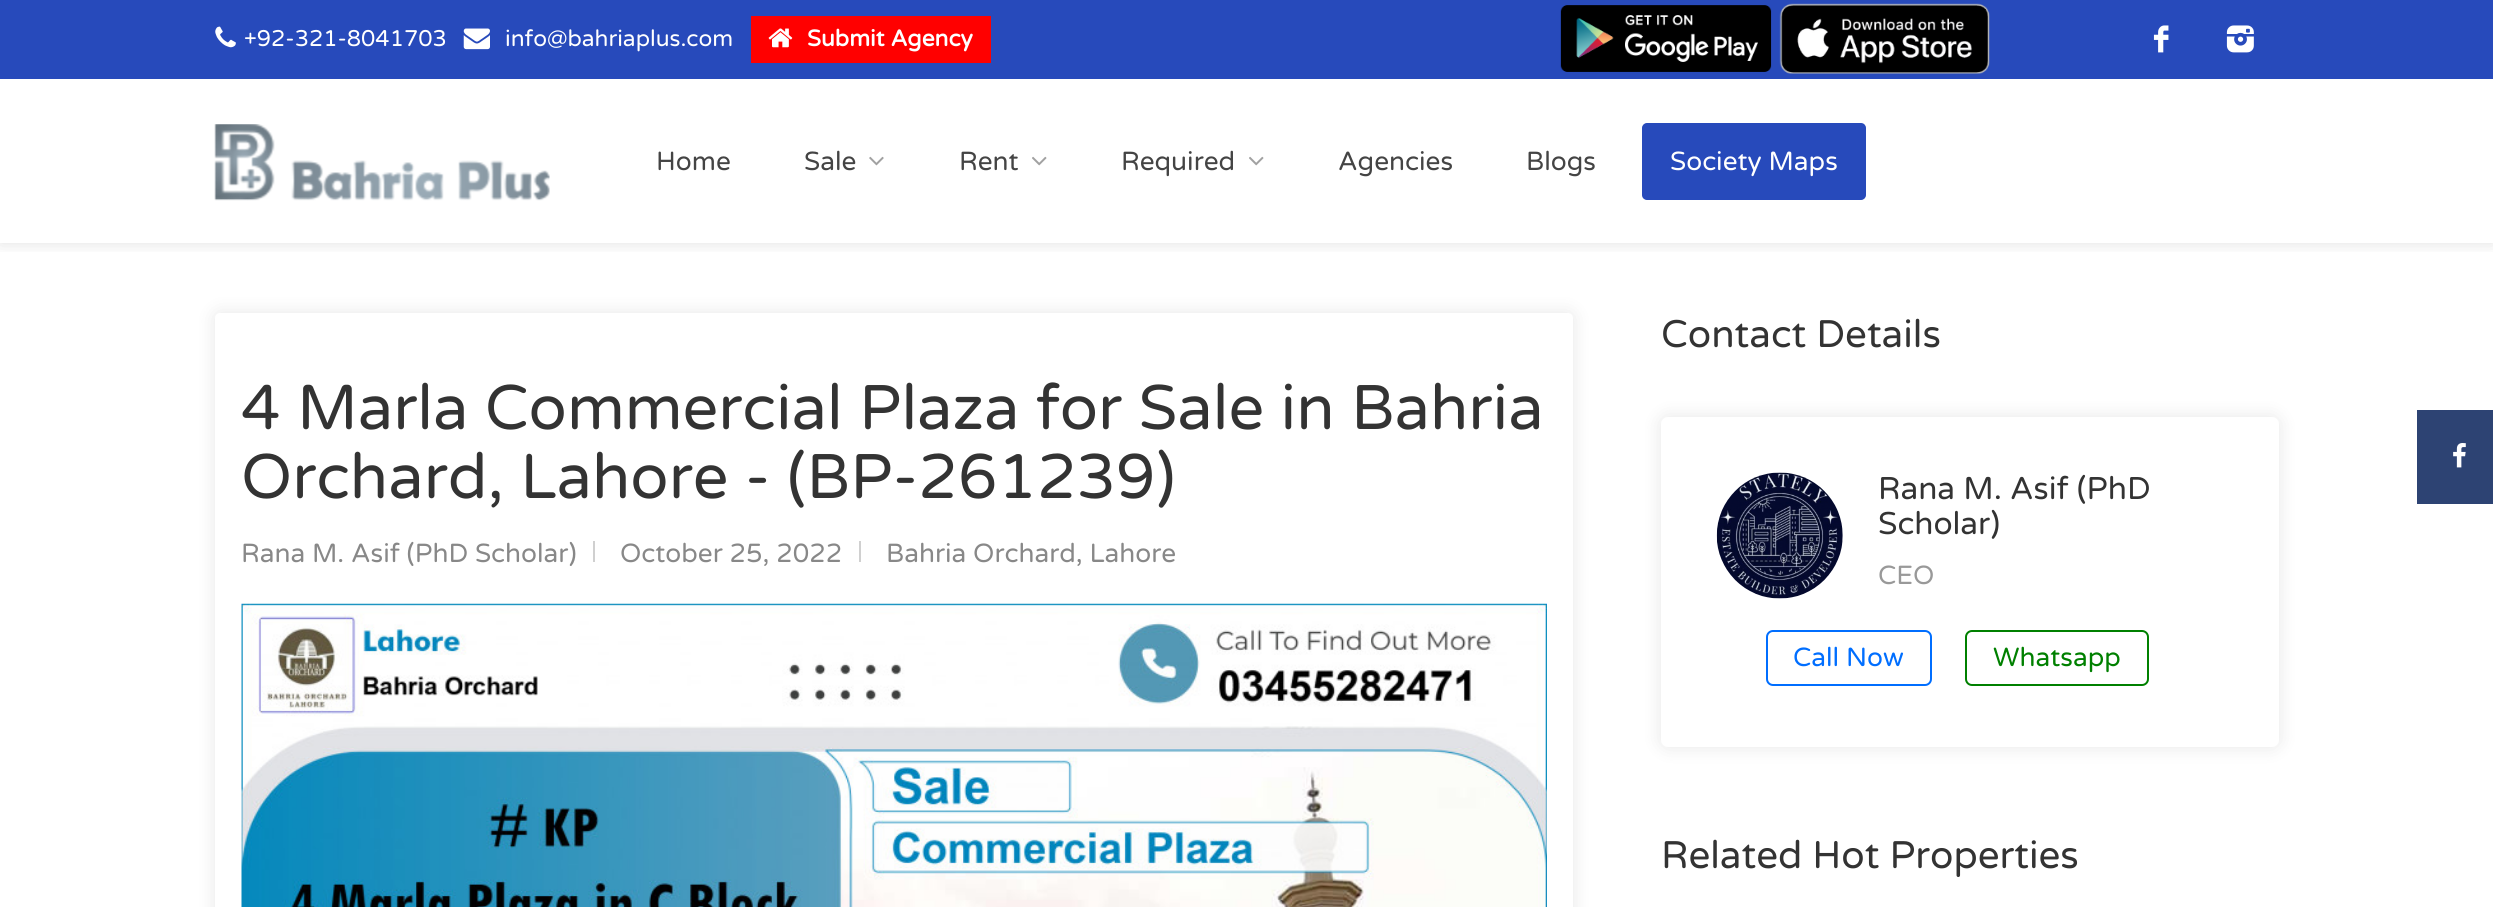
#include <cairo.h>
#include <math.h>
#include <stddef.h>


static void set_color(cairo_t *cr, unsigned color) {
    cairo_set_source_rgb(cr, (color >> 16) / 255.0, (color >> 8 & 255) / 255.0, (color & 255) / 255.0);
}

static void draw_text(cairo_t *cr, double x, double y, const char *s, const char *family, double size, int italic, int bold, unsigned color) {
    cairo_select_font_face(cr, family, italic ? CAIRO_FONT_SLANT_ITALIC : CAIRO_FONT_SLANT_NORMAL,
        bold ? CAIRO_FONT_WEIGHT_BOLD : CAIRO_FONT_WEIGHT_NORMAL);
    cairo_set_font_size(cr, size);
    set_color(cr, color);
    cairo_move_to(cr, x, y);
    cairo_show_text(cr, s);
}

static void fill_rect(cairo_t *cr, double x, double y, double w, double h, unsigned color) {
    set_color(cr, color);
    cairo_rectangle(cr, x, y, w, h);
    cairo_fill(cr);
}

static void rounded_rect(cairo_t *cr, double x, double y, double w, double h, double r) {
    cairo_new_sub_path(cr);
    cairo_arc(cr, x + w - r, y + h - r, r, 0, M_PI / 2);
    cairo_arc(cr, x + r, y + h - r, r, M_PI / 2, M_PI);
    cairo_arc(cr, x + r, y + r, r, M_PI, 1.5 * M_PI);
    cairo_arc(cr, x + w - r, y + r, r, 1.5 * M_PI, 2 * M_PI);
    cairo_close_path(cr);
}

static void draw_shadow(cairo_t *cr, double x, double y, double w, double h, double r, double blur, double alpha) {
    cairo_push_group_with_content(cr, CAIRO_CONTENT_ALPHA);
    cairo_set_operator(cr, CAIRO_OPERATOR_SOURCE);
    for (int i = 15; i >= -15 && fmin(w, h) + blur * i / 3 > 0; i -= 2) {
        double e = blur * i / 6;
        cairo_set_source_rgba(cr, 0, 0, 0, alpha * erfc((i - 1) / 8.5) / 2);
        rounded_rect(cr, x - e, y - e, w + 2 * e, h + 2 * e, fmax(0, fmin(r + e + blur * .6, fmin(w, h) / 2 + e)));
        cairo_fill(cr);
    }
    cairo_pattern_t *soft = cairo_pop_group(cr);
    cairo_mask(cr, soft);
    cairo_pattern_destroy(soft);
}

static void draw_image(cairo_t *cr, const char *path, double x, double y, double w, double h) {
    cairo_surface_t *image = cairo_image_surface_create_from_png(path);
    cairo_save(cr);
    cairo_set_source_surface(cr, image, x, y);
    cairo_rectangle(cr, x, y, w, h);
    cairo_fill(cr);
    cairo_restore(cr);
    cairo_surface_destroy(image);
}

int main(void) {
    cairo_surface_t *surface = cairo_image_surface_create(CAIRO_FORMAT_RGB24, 2493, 907);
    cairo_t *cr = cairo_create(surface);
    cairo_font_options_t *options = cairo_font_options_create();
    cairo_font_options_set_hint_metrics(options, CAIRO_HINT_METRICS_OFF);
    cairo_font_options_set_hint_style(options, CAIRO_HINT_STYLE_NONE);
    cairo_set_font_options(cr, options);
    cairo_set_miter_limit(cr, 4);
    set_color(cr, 0xFFFFFF);
    cairo_paint(cr);
    cairo_save(cr);
    cairo_rectangle(cr, 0, 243, 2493, 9);
    cairo_clip(cr);
    set_color(cr, 0x000000);
    draw_shadow(cr, 0, 79, 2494, 164, 0, 9, 0.12);
    cairo_restore(cr);
    fill_rect(cr, 0, 0, 2493, 79, 0x274ABB);
    draw_image(cr, "assets/img1.png", 215, 26, 21, 22);
    draw_text(cr, 244, 46, "+92-321-8041703", "Varela Round", 22.75, 0, 0, 0xFFFFFF);
    draw_image(cr, "assets/img2.png", 463, 28, 27, 22);
    draw_text(cr, 505, 46, "info@bahriaplus.com", "Varela Round", 22.75, 0, 0, 0xFFFFFF);
    fill_rect(cr, 751, 16, 240, 47, 0xFF0000);
    draw_image(cr, "assets/img3.png", 768, 28, 25, 20);
    draw_text(cr, 807, 46, "Submit Agency", "Varela Round", 22.75, 0, 1, 0xFFFFFF);
    draw_image(cr, "assets/img4.png", 1560, 5, 212, 67);
    draw_image(cr, "assets/img5.png", 1779, 3, 211, 71);
    draw_image(cr, "assets/img6.png", 2153, 25, 16, 28);
    draw_image(cr, "assets/img7.png", 2226, 25, 28, 28);
    draw_image(cr, "assets/img8.png", 214, 124, 336, 77);
    draw_text(cr, 656, 170, "Home", "Varela Round", 26.25, 0, 0, 0x444444);
    draw_text(cr, 804, 170, "Sale", "Varela Round", 26.25, 0, 0, 0x444444);
    draw_image(cr, "assets/img9.png", 869, 156, 15, 10);
    draw_text(cr, 959, 170, "Rent", "Varela Round", 26.25, 0, 0, 0x444444);
    draw_image(cr, "assets/img10.png", 1032, 156, 15, 10);
    draw_text(cr, 1121, 170, "Required", "Varela Round", 26.25, 0, 0, 0x444444);
    draw_image(cr, "assets/img10.png", 1249, 156, 15, 10);
    draw_text(cr, 1338, 170, "Agencies", "Varela Round", 26.25, 0, 0, 0x444444);
    draw_text(cr, 1526, 170, "Blogs", "Varela Round", 26.25, 0, 0, 0x444444);
    set_color(cr, 0x274ABB);
    rounded_rect(cr, 1643, 124, 222, 75, 4);
    cairo_fill_preserve(cr);
    cairo_stroke(cr);
    draw_text(cr, 1670, 170, "Society Maps", "Varela Round", 26.25, 0, 0, 0xFFFFFF);
    set_color(cr, 0x000000);
    draw_shadow(cr, 215, 313, 1358, 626, 5, 9, 0.1);
    set_color(cr, 0xFFFFFF);
    rounded_rect(cr, 215, 313, 1358, 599, 5);
    cairo_fill(cr);
    draw_text(cr, 241, 429, "4 Marla Commercial Plaza for Sale in Bahria", "Varela Round", 63, 0, 0, 0x333333);
    draw_text(cr, 241, 498, "Orchard, Lahore - (BP-261239)", "Varela Round", 63, 0, 0, 0x333333);
    draw_text(cr, 241, 562, "Rana M. Asif (PhD Scholar)", "Varela Round", 26.25, 0, 0, 0x888888);
    fill_rect(cr, 593, 541, 2, 21, 0xD0D0D0);
    draw_text(cr, 620, 562, "October 25, 2022", "Varela Round", 26.25, 0, 0, 0x888888);
    fill_rect(cr, 859, 541, 2, 21, 0xD0D0D0);
    draw_text(cr, 886, 562, "Bahria Orchard, Lahore", "Varela Round", 26.25, 0, 0, 0x888888);
    draw_image(cr, "assets/img11.png", 241, 603, 1306, 304);
    draw_text(cr, 1661, 347, "Contact Details", "Varela Round", 38.5, 0, 0, 0x333333);
    set_color(cr, 0x000000);
    draw_shadow(cr, 1661, 417, 618, 330, 7, 9, 0.1);
    set_color(cr, 0xFFFFFF);
    rounded_rect(cr, 1661, 417, 618, 330, 7);
    cairo_fill(cr);
    draw_image(cr, "assets/img12.png", 1716, 472, 127, 127);
    draw_text(cr, 1878, 499, "Rana M. Asif (PhD", "Varela Round", 31.5, 0, 0, 0x333333);
    draw_text(cr, 1878, 534, "Scholar)", "Varela Round", 31.5, 0, 0, 0x333333);
    draw_text(cr, 1878, 584, "CEO", "Varela Round", 26.25, 0, 0, 0x999999);
    rounded_rect(cr, 1767, 631, 164, 54, 6);
    set_color(cr, 0x006EFF);
    cairo_stroke(cr);
    draw_text(cr, 1793, 666, "Call Now", "Varela Round", 26.25, 0, 0, 0x006EFF);
    rounded_rect(cr, 1966, 631, 182, 54, 6);
    set_color(cr, 0x008000);
    cairo_stroke(cr);
    draw_text(cr, 1993, 666, "Whatsapp", "Varela Round", 26.25, 0, 0, 0x008000);
    draw_text(cr, 1661, 868, "Related Hot Properties", "Varela Round", 38.5, 0, 0, 0x333333);
    fill_rect(cr, 2417, 410, 76, 94, 0x2D4373);
    draw_image(cr, "assets/img13.png", 2453, 443, 13, 25);
    cairo_surface_write_to_png(surface, "output.png");
    cairo_font_options_destroy(options);
    cairo_destroy(cr);
    cairo_surface_destroy(surface);
    return 0;
}
